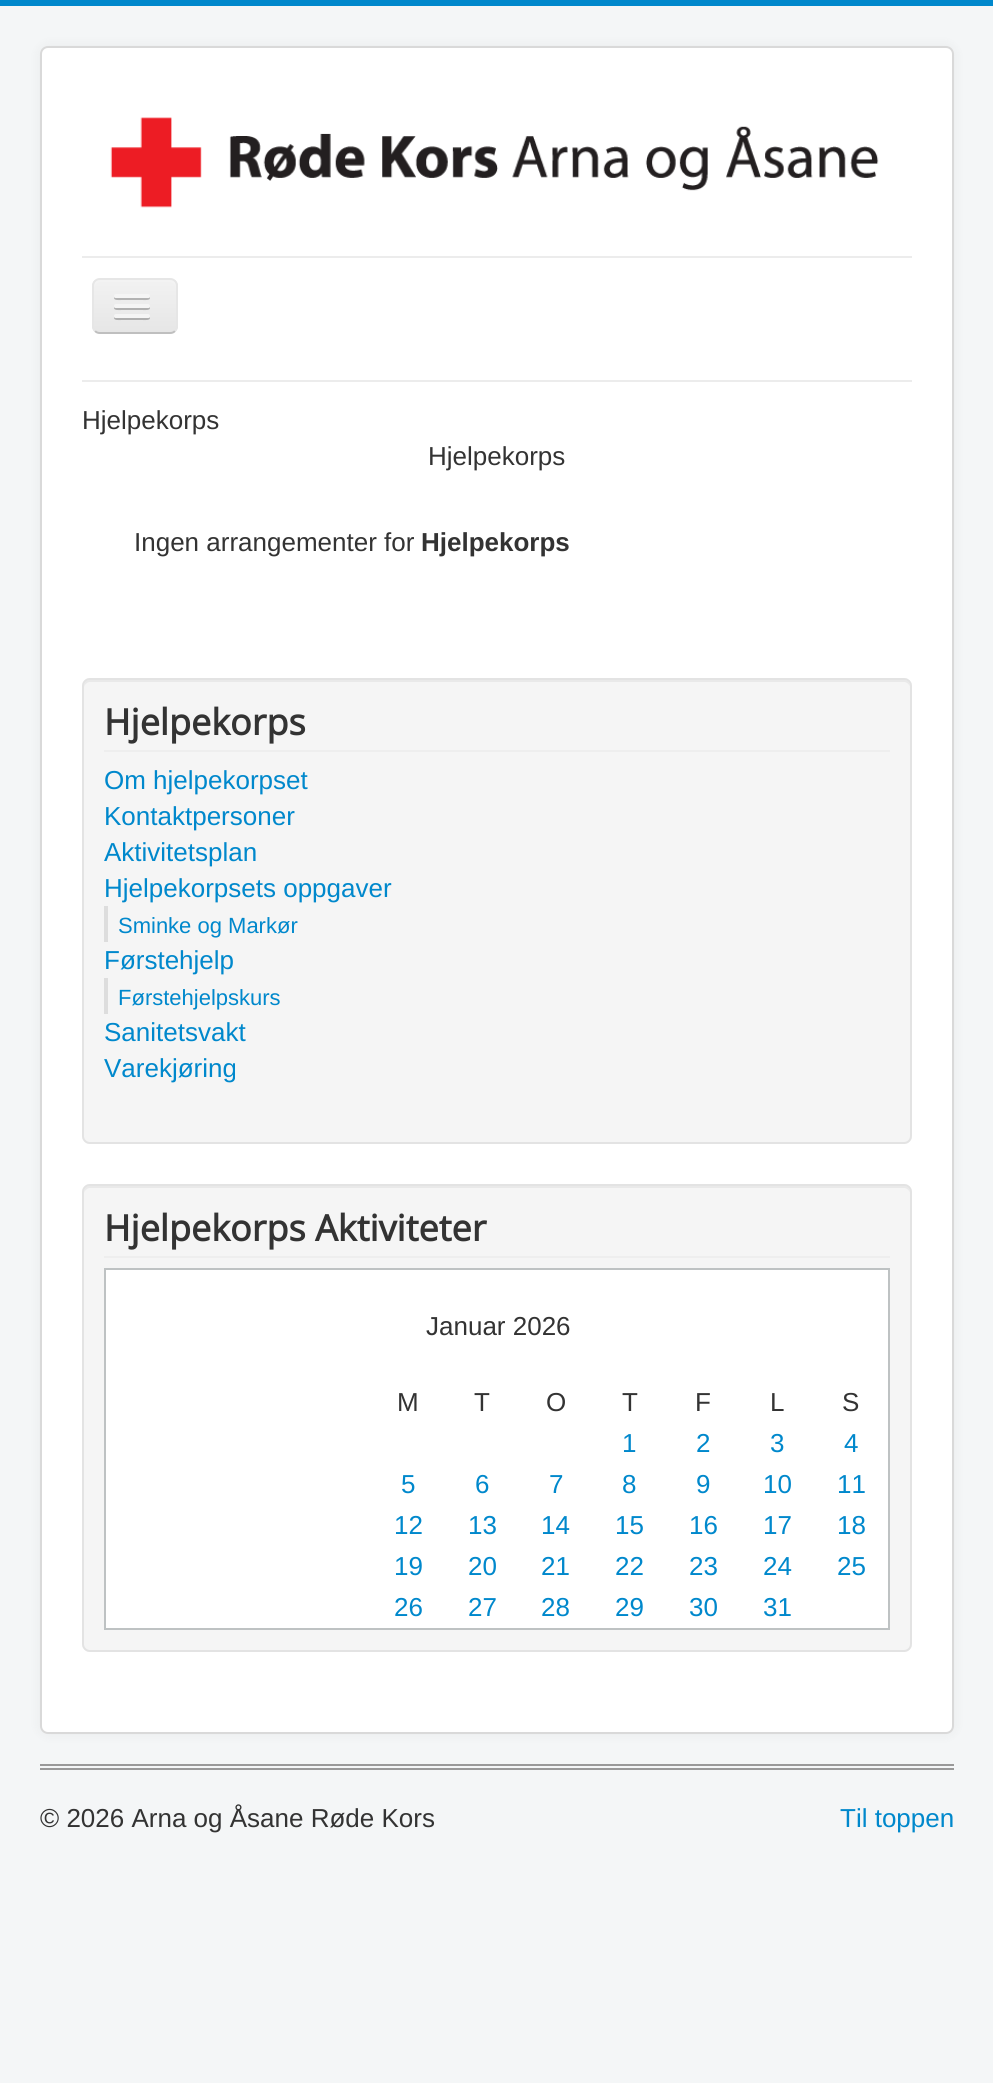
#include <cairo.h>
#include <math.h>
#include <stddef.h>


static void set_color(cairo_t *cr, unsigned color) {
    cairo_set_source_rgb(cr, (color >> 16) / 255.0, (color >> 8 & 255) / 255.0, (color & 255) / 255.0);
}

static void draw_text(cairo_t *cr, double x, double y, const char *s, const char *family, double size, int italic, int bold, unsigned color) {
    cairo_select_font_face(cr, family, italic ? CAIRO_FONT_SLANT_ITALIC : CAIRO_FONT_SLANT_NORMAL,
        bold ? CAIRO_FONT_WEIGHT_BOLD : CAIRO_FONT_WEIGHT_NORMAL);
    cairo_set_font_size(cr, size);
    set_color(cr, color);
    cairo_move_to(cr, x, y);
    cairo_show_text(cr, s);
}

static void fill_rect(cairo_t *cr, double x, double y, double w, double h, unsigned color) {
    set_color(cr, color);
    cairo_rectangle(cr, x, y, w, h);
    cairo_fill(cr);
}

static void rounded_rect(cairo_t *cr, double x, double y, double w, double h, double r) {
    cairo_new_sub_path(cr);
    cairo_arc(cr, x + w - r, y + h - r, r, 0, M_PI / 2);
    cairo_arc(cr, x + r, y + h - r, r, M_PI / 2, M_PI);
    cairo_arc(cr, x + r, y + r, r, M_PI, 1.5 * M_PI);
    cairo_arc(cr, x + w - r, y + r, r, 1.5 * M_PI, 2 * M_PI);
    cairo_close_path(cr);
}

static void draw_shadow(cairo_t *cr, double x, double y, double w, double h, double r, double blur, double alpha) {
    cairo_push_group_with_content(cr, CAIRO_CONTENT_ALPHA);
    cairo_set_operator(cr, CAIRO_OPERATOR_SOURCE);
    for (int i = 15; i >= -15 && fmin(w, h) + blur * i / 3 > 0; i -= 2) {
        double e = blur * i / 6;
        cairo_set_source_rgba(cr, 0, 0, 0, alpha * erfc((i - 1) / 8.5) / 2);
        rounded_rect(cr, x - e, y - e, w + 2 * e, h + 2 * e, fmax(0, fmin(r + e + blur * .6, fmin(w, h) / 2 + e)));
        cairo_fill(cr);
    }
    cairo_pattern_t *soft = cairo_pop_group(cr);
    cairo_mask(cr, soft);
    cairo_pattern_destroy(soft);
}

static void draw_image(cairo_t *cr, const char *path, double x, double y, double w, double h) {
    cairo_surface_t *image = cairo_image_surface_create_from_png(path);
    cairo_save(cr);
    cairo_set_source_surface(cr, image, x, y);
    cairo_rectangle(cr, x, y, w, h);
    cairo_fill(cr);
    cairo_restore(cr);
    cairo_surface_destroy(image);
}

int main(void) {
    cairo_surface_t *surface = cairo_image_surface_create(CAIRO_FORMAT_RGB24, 993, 2083);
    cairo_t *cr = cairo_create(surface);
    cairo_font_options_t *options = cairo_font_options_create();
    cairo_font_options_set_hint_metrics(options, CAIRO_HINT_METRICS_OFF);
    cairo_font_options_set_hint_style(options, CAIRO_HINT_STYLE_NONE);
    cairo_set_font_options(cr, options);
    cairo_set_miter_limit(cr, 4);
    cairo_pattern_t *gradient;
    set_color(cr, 0xF4F6F7);
    cairo_paint(cr);
    fill_rect(cr, 0, 0, 993, 6, 0x0088CC);
    set_color(cr, 0x000000);
    draw_shadow(cr, 40, 46, 914, 1688, 8, 6, 0.05);
    set_color(cr, 0xFFFFFF);
    rounded_rect(cr, 40, 46, 914, 1688, 8);
    cairo_fill(cr);
    rounded_rect(cr, 41, 47, 912, 1686, 7);
    cairo_set_source_rgba(cr, 0, 0, 0, 0.15);
    cairo_stroke(cr);
    draw_image(cr, "assets/img1.png", 110, 117, 769, 91);
    fill_rect(cr, 82, 256, 830, 2, 0xECECEC);
    fill_rect(cr, 82, 380, 830, 2, 0xECECEC);
    cairo_save(cr);
    rounded_rect(cr, 92, 278, 86, 56, 8);
    cairo_clip(cr);
    gradient = cairo_pattern_create_linear(135, 280, 135, 332);
    cairo_pattern_add_color_stop_rgba(gradient, 0, 0.949, 0.949, 0.949, 1);
    cairo_pattern_add_color_stop_rgba(gradient, 1, 0.902, 0.902, 0.902, 1);
    cairo_set_source(cr, gradient);
    cairo_pattern_destroy(gradient);
    cairo_rectangle(cr, 92, 280, 86, 52);
    cairo_fill(cr);
    cairo_restore(cr);
    set_color(cr, 0xF3F3F3);
    cairo_new_path(cr);
    cairo_move_to(cr, 100, 282);
    cairo_line_to(cr, 170, 282);
    cairo_curve_to(cr, 173, 282, 176, 285, 176, 288);
    cairo_curve_to(cr, 176, 277, 167, 280, 158, 280);
    cairo_line_to(cr, 112, 280);
    cairo_curve_to(cr, 103, 280, 94, 277, 94, 288);
    cairo_curve_to(cr, 94, 285, 97, 282, 100, 282);
    cairo_close_path(cr);
    cairo_fill(cr);
    cairo_new_path(cr);
    cairo_move_to(cr, 175, 331);
    cairo_curve_to(cr, 173.5, 332.5, 172, 333, 170, 333);
    cairo_line_to(cr, 100, 333);
    cairo_curve_to(cr, 98, 333, 96.5, 332.5, 95, 331);
    set_color(cr, 0xBFBFBF);
    cairo_stroke(cr);
    cairo_new_path(cr);
    cairo_move_to(cr, 95, 331);
    cairo_curve_to(cr, 93.5, 329.5, 93, 328, 93, 326);
    cairo_line_to(cr, 93, 286);
    cairo_curve_to(cr, 93, 284, 93.5, 282.5, 95, 281);
    cairo_curve_to(cr, 96.5, 279.5, 98, 279, 100, 279);
    cairo_line_to(cr, 170, 279);
    cairo_curve_to(cr, 172, 279, 173.5, 279.5, 175, 281);
    cairo_curve_to(cr, 176.5, 282.5, 177, 284, 177, 286);
    cairo_line_to(cr, 177, 326);
    cairo_curve_to(cr, 177, 328, 176.5, 329.5, 175, 331);
    set_color(cr, 0xE6E6E6);
    cairo_stroke(cr);
    set_color(cr, 0xB3B3B3);
    cairo_new_path(cr);
    cairo_move_to(cr, 114.5, 297);
    cairo_curve_to(cr, 112, 301, 121, 300, 121.5, 300);
    cairo_line_to(cr, 142.5, 300);
    cairo_curve_to(cr, 143, 300, 152, 301, 149.5, 297);
    cairo_curve_to(cr, 149.5, 297.5, 148.5, 298, 148, 298);
    cairo_line_to(cr, 116, 298);
    cairo_curve_to(cr, 115.5, 298, 114.5, 297.5, 114.5, 297);
    cairo_close_path(cr);
    cairo_fill(cr);
    set_color(cr, 0xF5F5F5);
    rounded_rect(cr, 114, 294, 36, 4, 2);
    cairo_fill(cr);
    set_color(cr, 0xB0B0B0);
    cairo_new_path(cr);
    cairo_move_to(cr, 114.5, 307);
    cairo_curve_to(cr, 112, 311, 121, 310, 121.5, 310);
    cairo_line_to(cr, 142.5, 310);
    cairo_curve_to(cr, 143, 310, 152, 311, 149.5, 307);
    cairo_curve_to(cr, 149.5, 307.5, 148.5, 308, 148, 308);
    cairo_line_to(cr, 116, 308);
    cairo_curve_to(cr, 115.5, 308, 114.5, 307.5, 114.5, 307);
    cairo_close_path(cr);
    cairo_fill(cr);
    set_color(cr, 0xF5F5F5);
    rounded_rect(cr, 114, 304, 36, 4, 2);
    cairo_fill(cr);
    set_color(cr, 0xAFAFAF);
    cairo_new_path(cr);
    cairo_move_to(cr, 114.5, 317);
    cairo_curve_to(cr, 112, 321, 121, 320, 121.5, 320);
    cairo_line_to(cr, 142.5, 320);
    cairo_curve_to(cr, 143, 320, 152, 321, 149.5, 317);
    cairo_curve_to(cr, 149.5, 317.5, 148.5, 318, 148, 318);
    cairo_line_to(cr, 116, 318);
    cairo_curve_to(cr, 115.5, 318, 114.5, 317.5, 114.5, 317);
    cairo_close_path(cr);
    cairo_fill(cr);
    set_color(cr, 0xF5F5F5);
    rounded_rect(cr, 114, 314, 36, 4, 2);
    cairo_fill(cr);
    draw_text(cr, 82, 429, "Hjelpekorps", "Liberation Sans", 26, 0, 0, 0x333333);
    draw_text(cr, 428, 465, "Hjelpekorps", "Liberation Sans", 26, 0, 0, 0x333333);
    draw_text(cr, 134, 551, "Ingen arrangementer for", "Liberation Sans", 26, 0, 0, 0x333333);
    draw_text(cr, 421, 551, "Hjelpekorps", "Liberation Sans", 26, 0, 1, 0x333333);
    set_color(cr, 0xF5F5F5);
    rounded_rect(cr, 82, 678, 830, 466, 8);
    cairo_fill(cr);
    set_color(cr, 0xE9E9E9);
    cairo_new_path(cr);
    cairo_move_to(cr, 90, 682);
    cairo_line_to(cr, 904, 682);
    cairo_curve_to(cr, 907, 682, 910, 685, 910, 688);
    cairo_curve_to(cr, 910, 684, 909, 680, 904, 680);
    cairo_line_to(cr, 90, 680);
    cairo_curve_to(cr, 85, 680, 84, 684, 84, 688);
    cairo_curve_to(cr, 84, 685, 87, 682, 90, 682);
    cairo_close_path(cr);
    cairo_fill(cr);
    rounded_rect(cr, 83, 679, 828, 464, 7);
    set_color(cr, 0xE3E3E3);
    cairo_stroke(cr);
    fill_rect(cr, 104, 750, 786, 2, 0xEEEEEE);
    draw_text(cr, 104, 735, "Hjelpekorps", "Open Sans", 36, 0, 1, 0x333333);
    draw_text(cr, 104, 789, "Om hjelpekorpset", "Liberation Sans", 26, 0, 0, 0x0088CC);
    draw_text(cr, 104, 825, "Kontaktpersoner", "Liberation Sans", 26, 0, 0, 0x0088CC);
    draw_text(cr, 104, 861, "Aktivitetsplan", "Liberation Sans", 26, 0, 0, 0x0088CC);
    draw_text(cr, 104, 897, "Hjelpekorpsets oppgaver", "Liberation Sans", 26, 0, 0, 0x0088CC);
    fill_rect(cr, 104, 906, 4, 36, 0xDDDDDD);
    draw_text(cr, 118, 933, "Sminke og Markør", "Liberation Sans", 22, 0, 0, 0x0088CC);
    draw_text(cr, 104, 969, "Førstehjelp", "Liberation Sans", 26, 0, 0, 0x0088CC);
    fill_rect(cr, 104, 978, 4, 36, 0xDDDDDD);
    draw_text(cr, 118, 1005, "Førstehjelpskurs", "Liberation Sans", 22, 0, 0, 0x0088CC);
    draw_text(cr, 104, 1041, "Sanitetsvakt", "Liberation Sans", 26, 0, 0, 0x0088CC);
    draw_text(cr, 104, 1077, "Varekjøring", "Liberation Sans", 26, 0, 0, 0x0088CC);
    set_color(cr, 0xF5F5F5);
    rounded_rect(cr, 82, 1184, 830, 468, 8);
    cairo_fill(cr);
    set_color(cr, 0xE9E9E9);
    cairo_new_path(cr);
    cairo_move_to(cr, 90, 1188);
    cairo_line_to(cr, 904, 1188);
    cairo_curve_to(cr, 907, 1188, 910, 1191, 910, 1194);
    cairo_curve_to(cr, 910, 1190, 909, 1186, 904, 1186);
    cairo_line_to(cr, 90, 1186);
    cairo_curve_to(cr, 85, 1186, 84, 1190, 84, 1194);
    cairo_curve_to(cr, 84, 1191, 87, 1188, 90, 1188);
    cairo_close_path(cr);
    cairo_fill(cr);
    rounded_rect(cr, 83, 1185, 828, 466, 7);
    set_color(cr, 0xE3E3E3);
    cairo_stroke(cr);
    fill_rect(cr, 104, 1256, 786, 2, 0xEEEEEE);
    draw_text(cr, 104, 1241, "Hjelpekorps Aktiviteter", "Open Sans", 36, 0, 1, 0x333333);
    fill_rect(cr, 106, 1270, 782, 358, 0xFFFFFF);
    fill_rect(cr, 104, 1268, 786, 2, 0xBEC2C3);
    fill_rect(cr, 888, 1268, 2, 362, 0xBEC2C3);
    fill_rect(cr, 104, 1628, 786, 2, 0xBEC2C3);
    fill_rect(cr, 104, 1268, 2, 362, 0xBEC2C3);
    draw_text(cr, 426, 1335, "Januar 2026", "Liberation Sans", 26, 0, 0, 0x333333);
    draw_text(cr, 397, 1411, "M", "Liberation Sans", 26, 0, 0, 0x333333);
    draw_text(cr, 474, 1411, "T", "Liberation Sans", 26, 0, 0, 0x333333);
    draw_text(cr, 546, 1411, "O", "Liberation Sans", 26, 0, 0, 0x333333);
    draw_text(cr, 622, 1411, "T", "Liberation Sans", 26, 0, 0, 0x333333);
    draw_text(cr, 695, 1411, "F", "Liberation Sans", 26, 0, 0, 0x333333);
    draw_text(cr, 770, 1411, "L", "Liberation Sans", 26, 0, 0, 0x333333);
    draw_text(cr, 842, 1411, "S", "Liberation Sans", 26, 0, 0, 0x333333);
    draw_text(cr, 622, 1452, "1", "Liberation Sans", 26, 0, 0, 0x0088CC);
    draw_text(cr, 696, 1452, "2", "Liberation Sans", 26, 0, 0, 0x0088CC);
    draw_text(cr, 770, 1452, "3", "Liberation Sans", 26, 0, 0, 0x0088CC);
    draw_text(cr, 844, 1452, "4", "Liberation Sans", 26, 0, 0, 0x0088CC);
    draw_text(cr, 401, 1493, "5", "Liberation Sans", 26, 0, 0, 0x0088CC);
    draw_text(cr, 475, 1493, "6", "Liberation Sans", 26, 0, 0, 0x0088CC);
    draw_text(cr, 549, 1493, "7", "Liberation Sans", 26, 0, 0, 0x0088CC);
    draw_text(cr, 622, 1493, "8", "Liberation Sans", 26, 0, 0, 0x0088CC);
    draw_text(cr, 696, 1493, "9", "Liberation Sans", 26, 0, 0, 0x0088CC);
    draw_text(cr, 763, 1493, "10", "Liberation Sans", 26, 0, 0, 0x0088CC);
    draw_text(cr, 837, 1493, "11", "Liberation Sans", 26, 0, 0, 0x0088CC);
    draw_text(cr, 394, 1534, "12", "Liberation Sans", 26, 0, 0, 0x0088CC);
    draw_text(cr, 468, 1534, "13", "Liberation Sans", 26, 0, 0, 0x0088CC);
    draw_text(cr, 541, 1534, "14", "Liberation Sans", 26, 0, 0, 0x0088CC);
    draw_text(cr, 615, 1534, "15", "Liberation Sans", 26, 0, 0, 0x0088CC);
    draw_text(cr, 689, 1534, "16", "Liberation Sans", 26, 0, 0, 0x0088CC);
    draw_text(cr, 763, 1534, "17", "Liberation Sans", 26, 0, 0, 0x0088CC);
    draw_text(cr, 837, 1534, "18", "Liberation Sans", 26, 0, 0, 0x0088CC);
    draw_text(cr, 394, 1575, "19", "Liberation Sans", 26, 0, 0, 0x0088CC);
    draw_text(cr, 468, 1575, "20", "Liberation Sans", 26, 0, 0, 0x0088CC);
    draw_text(cr, 541, 1575, "21", "Liberation Sans", 26, 0, 0, 0x0088CC);
    draw_text(cr, 615, 1575, "22", "Liberation Sans", 26, 0, 0, 0x0088CC);
    draw_text(cr, 689, 1575, "23", "Liberation Sans", 26, 0, 0, 0x0088CC);
    draw_text(cr, 763, 1575, "24", "Liberation Sans", 26, 0, 0, 0x0088CC);
    draw_text(cr, 837, 1575, "25", "Liberation Sans", 26, 0, 0, 0x0088CC);
    draw_text(cr, 394, 1616, "26", "Liberation Sans", 26, 0, 0, 0x0088CC);
    draw_text(cr, 468, 1616, "27", "Liberation Sans", 26, 0, 0, 0x0088CC);
    draw_text(cr, 541, 1616, "28", "Liberation Sans", 26, 0, 0, 0x0088CC);
    draw_text(cr, 615, 1616, "29", "Liberation Sans", 26, 0, 0, 0x0088CC);
    draw_text(cr, 689, 1616, "30", "Liberation Sans", 26, 0, 0, 0x0088CC);
    draw_text(cr, 763, 1616, "31", "Liberation Sans", 26, 0, 0, 0x0088CC);
    fill_rect(cr, 40, 1764, 914, 2, 0x999999);
    fill_rect(cr, 40, 1768, 914, 2, 0x999999);
    draw_text(cr, 40, 1827, "© 2026 Arna og Åsane Røde Kors", "Liberation Sans", 26, 0, 0, 0x333333);
    draw_text(cr, 840, 1827, "Til toppen", "Liberation Sans", 26, 0, 0, 0x0088CC);
    cairo_surface_write_to_png(surface, "output.png");
    cairo_font_options_destroy(options);
    cairo_destroy(cr);
    cairo_surface_destroy(surface);
    return 0;
}
